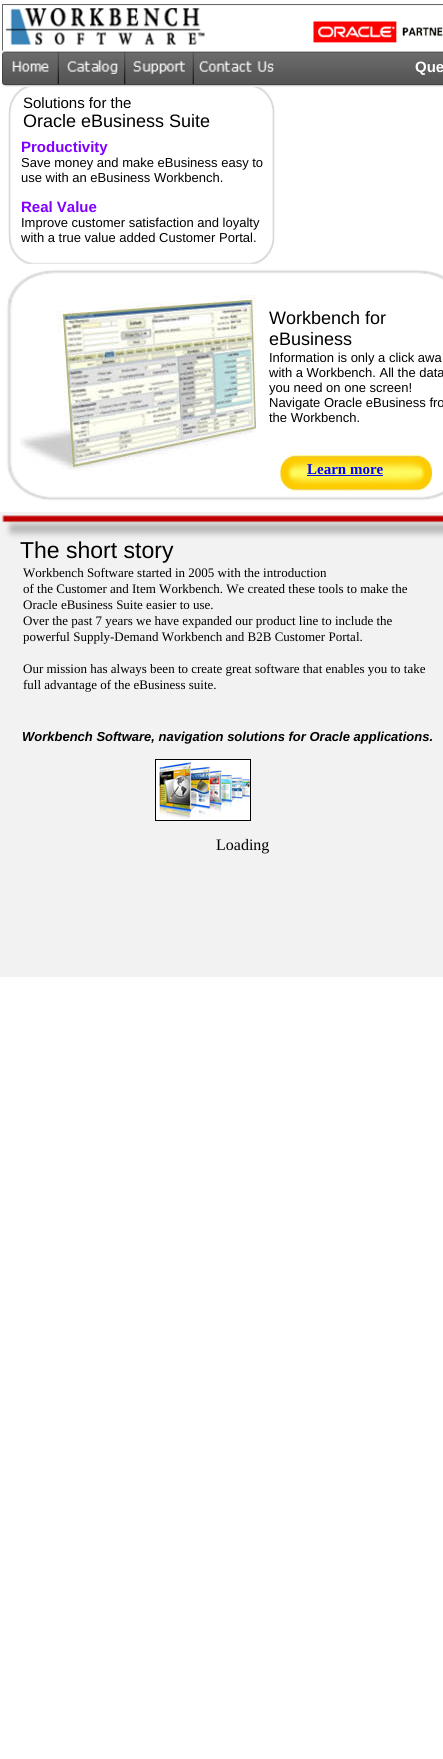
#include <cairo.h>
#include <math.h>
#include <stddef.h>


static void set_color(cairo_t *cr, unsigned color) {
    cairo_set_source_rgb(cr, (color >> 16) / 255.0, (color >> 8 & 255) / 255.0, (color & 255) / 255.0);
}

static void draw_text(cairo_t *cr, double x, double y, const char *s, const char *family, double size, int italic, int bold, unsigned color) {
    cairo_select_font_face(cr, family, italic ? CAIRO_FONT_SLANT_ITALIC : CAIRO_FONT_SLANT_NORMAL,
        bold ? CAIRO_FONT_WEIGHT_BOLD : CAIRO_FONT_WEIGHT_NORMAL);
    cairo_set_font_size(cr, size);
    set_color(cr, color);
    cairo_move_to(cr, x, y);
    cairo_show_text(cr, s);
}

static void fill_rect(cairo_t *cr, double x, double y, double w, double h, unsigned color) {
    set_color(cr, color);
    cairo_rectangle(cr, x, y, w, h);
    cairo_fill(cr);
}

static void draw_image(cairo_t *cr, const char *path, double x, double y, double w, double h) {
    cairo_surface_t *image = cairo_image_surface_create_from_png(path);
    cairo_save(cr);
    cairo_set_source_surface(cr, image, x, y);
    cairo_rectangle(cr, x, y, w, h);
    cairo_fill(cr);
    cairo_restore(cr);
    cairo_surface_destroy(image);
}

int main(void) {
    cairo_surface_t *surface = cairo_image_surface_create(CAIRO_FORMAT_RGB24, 443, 1759);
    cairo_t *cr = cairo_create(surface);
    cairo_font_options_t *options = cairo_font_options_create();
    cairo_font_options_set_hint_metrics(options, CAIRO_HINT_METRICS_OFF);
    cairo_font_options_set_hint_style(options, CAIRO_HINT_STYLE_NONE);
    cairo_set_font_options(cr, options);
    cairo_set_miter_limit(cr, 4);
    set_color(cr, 0xFFFFFF);
    cairo_paint(cr);
    draw_image(cr, "assets/img1.png", 2, 4, 441, 83);
    draw_image(cr, "assets/img2.png", 313, 21, 130, 24);
    draw_image(cr, "assets/img3.png", 12, 61, 37, 11);
    draw_image(cr, "assets/img4.png", 67, 60, 51, 14);
    draw_image(cr, "assets/img5.png", 133, 61, 53, 13);
    draw_image(cr, "assets/img6.png", 199, 61, 75, 11);
    draw_text(cr, 415, 72, "Que", "Liberation Sans", 15, 0, 1, 0xFFFFFF);
    draw_image(cr, "assets/img7.png", 8, 87, 267, 177);
    draw_text(cr, 23, 108, "Solutions for the", "Liberation Sans", 15, 0, 0, 0x000000);
    draw_text(cr, 23, 127, "Oracle eBusiness Suite", "Liberation Sans", 18, 0, 0, 0x000000);
    draw_text(cr, 21, 152, "Productivity", "Liberation Sans", 15, 0, 1, 0x8000FF);
    draw_text(cr, 21, 167, "Save money and make eBusiness easy to", "Liberation Sans", 13, 0, 0, 0x000000);
    draw_text(cr, 21, 182, "use with an eBusiness Workbench.", "Liberation Sans", 13, 0, 0, 0x000000);
    draw_text(cr, 21, 212, "Real Value", "Liberation Sans", 15, 0, 1, 0x8000FF);
    draw_text(cr, 21, 227, "Improve customer satisfaction and loyalty", "Liberation Sans", 13, 0, 0, 0x000000);
    draw_text(cr, 21, 242, "with a true value added Customer Portal.", "Liberation Sans", 13, 0, 0, 0x000000);
    draw_image(cr, "assets/img8.png", 6, 264, 437, 237);
    draw_image(cr, "assets/img9.png", 20, 295, 236, 176);
    draw_text(cr, 269, 324, "Workbench for", "Liberation Sans", 18, 0, 0, 0x000000);
    draw_text(cr, 269, 345, "eBusiness", "Liberation Sans", 18, 0, 0, 0x000000);
    draw_text(cr, 269, 362, "Information is only a click awa", "Liberation Sans", 13, 0, 0, 0x000000);
    draw_text(cr, 269, 377, "with a Workbench. All the data", "Liberation Sans", 13, 0, 0, 0x000000);
    draw_text(cr, 269, 392, "you need on one screen!", "Liberation Sans", 13, 0, 0, 0x000000);
    draw_text(cr, 269, 407, "Navigate Oracle eBusiness fro", "Liberation Sans", 13, 0, 0, 0x000000);
    draw_text(cr, 269, 422, "the Workbench.", "Liberation Sans", 13, 0, 0, 0x000000);
    draw_image(cr, "assets/img10.png", 279, 455, 153, 36);
    draw_text(cr, 307, 474, "Learn more", "Liberation Serif", 15, 0, 1, 0x0000FF);
    fill_rect(cr, 307, 475, 76, 1, 0x0000FF);
    draw_image(cr, "assets/img11.png", 0, 512, 443, 465);
    draw_text(cr, 20, 558, "The short story", "Liberation Sans", 23, 0, 0, 0x000000);
    draw_text(cr, 23, 577, "Workbench Software started in 2005 with the introduction", "Liberation Serif", 13, 0, 0, 0x000000);
    draw_text(cr, 23, 593, "of the Customer and Item Workbench. We created these tools to make the", "Liberation Serif", 13, 0, 0, 0x000000);
    draw_text(cr, 23, 609, "Oracle eBusiness Suite easier to use.", "Liberation Serif", 13, 0, 0, 0x000000);
    draw_text(cr, 23, 625, "Over the past 7 years we have expanded our product line to include the", "Liberation Serif", 13, 0, 0, 0x000000);
    draw_text(cr, 23, 641, "powerful Supply-Demand Workbench and B2B Customer Portal.", "Liberation Serif", 13, 0, 0, 0x000000);
    draw_text(cr, 23, 673, "Our mission has always been to create great software that enables you to take", "Liberation Serif", 13, 0, 0, 0x000000);
    draw_text(cr, 23, 689, "full advantage of the eBusiness suite.", "Liberation Serif", 13, 0, 0, 0x000000);
    draw_text(cr, 22, 741, "Workbench Software, navigation solutions for Oracle applications.", "Liberation Sans", 13, 1, 1, 0x000000);
    draw_image(cr, "assets/img12.png", 155, 759, 96, 62);
    draw_text(cr, 216, 850, "Loading", "Liberation Serif", 16, 0, 0, 0x000000);
    cairo_surface_write_to_png(surface, "output.png");
    cairo_font_options_destroy(options);
    cairo_destroy(cr);
    cairo_surface_destroy(surface);
    return 0;
}
